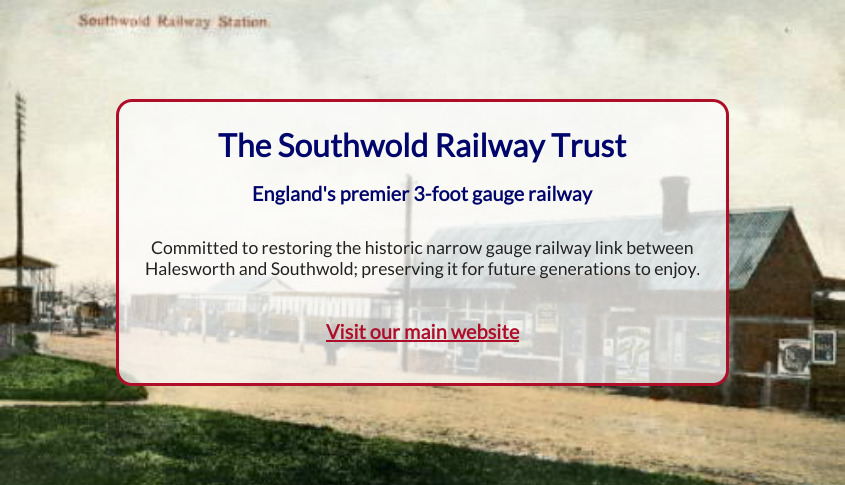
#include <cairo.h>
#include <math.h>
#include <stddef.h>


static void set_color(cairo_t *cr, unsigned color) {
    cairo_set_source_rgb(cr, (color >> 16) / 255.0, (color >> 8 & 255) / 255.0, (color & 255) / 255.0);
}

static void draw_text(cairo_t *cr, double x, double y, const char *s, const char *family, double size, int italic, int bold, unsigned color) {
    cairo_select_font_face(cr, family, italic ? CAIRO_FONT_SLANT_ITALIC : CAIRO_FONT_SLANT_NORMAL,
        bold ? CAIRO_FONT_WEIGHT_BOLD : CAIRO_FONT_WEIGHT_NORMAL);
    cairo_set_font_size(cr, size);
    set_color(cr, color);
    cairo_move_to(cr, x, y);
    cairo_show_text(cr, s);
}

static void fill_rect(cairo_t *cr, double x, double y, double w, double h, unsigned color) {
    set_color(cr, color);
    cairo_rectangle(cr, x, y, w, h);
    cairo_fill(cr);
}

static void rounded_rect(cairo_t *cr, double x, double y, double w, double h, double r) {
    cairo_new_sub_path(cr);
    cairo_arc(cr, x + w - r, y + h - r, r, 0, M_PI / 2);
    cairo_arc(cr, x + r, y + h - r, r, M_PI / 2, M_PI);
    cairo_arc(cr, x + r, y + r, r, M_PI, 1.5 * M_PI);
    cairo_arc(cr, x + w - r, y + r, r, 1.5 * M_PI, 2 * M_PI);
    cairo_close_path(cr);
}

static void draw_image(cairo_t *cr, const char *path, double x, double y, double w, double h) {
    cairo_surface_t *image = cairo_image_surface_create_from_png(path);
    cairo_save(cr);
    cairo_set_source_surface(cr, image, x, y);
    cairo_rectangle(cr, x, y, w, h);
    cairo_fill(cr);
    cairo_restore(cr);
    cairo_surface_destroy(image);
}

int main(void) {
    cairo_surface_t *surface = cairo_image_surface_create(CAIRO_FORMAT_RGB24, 845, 485);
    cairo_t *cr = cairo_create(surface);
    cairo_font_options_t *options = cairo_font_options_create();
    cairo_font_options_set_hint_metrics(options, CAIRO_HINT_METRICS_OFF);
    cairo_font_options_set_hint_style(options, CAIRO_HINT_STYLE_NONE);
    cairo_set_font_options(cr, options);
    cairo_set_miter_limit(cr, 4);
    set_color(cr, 0xFFFFFF);
    cairo_paint(cr);
    draw_image(cr, "assets/img1.png", 0, 0, 845, 485);
    cairo_set_source_rgba(cr, 0.98, 0.98, 0.98, 0.75);
    rounded_rect(cr, 117.5, 100.5, 610, 284, 14.5);
    cairo_fill_preserve(cr);
    set_color(cr, 0xAF0E29);
    cairo_set_line_width(cr, 3);
    cairo_stroke(cr);
    draw_text(cr, 218, 157, "The Southwold Railway Trust", "Lato", 32, 0, 1, 0x00056B);
    draw_text(cr, 252, 201, "England's premier 3-foot gauge railway", "Lato", 20, 0, 1, 0x00056B);
    draw_text(cr, 151, 254, "Committed to restoring the historic narrow gauge railway link between", "Lato", 17.6, 0, 0, 0x222222);
    draw_text(cr, 145, 275, "Halesworth and Southwold; preserving it for future generations to enjoy.", "Lato", 17.6, 0, 0, 0x222222);
    draw_text(cr, 326, 339, "Visit our main website", "Lato", 20, 0, 1, 0xAF0E29);
    fill_rect(cr, 326, 340, 193, 2, 0xAF0E29);
    cairo_surface_write_to_png(surface, "output.png");
    cairo_font_options_destroy(options);
    cairo_destroy(cr);
    cairo_surface_destroy(surface);
    return 0;
}
